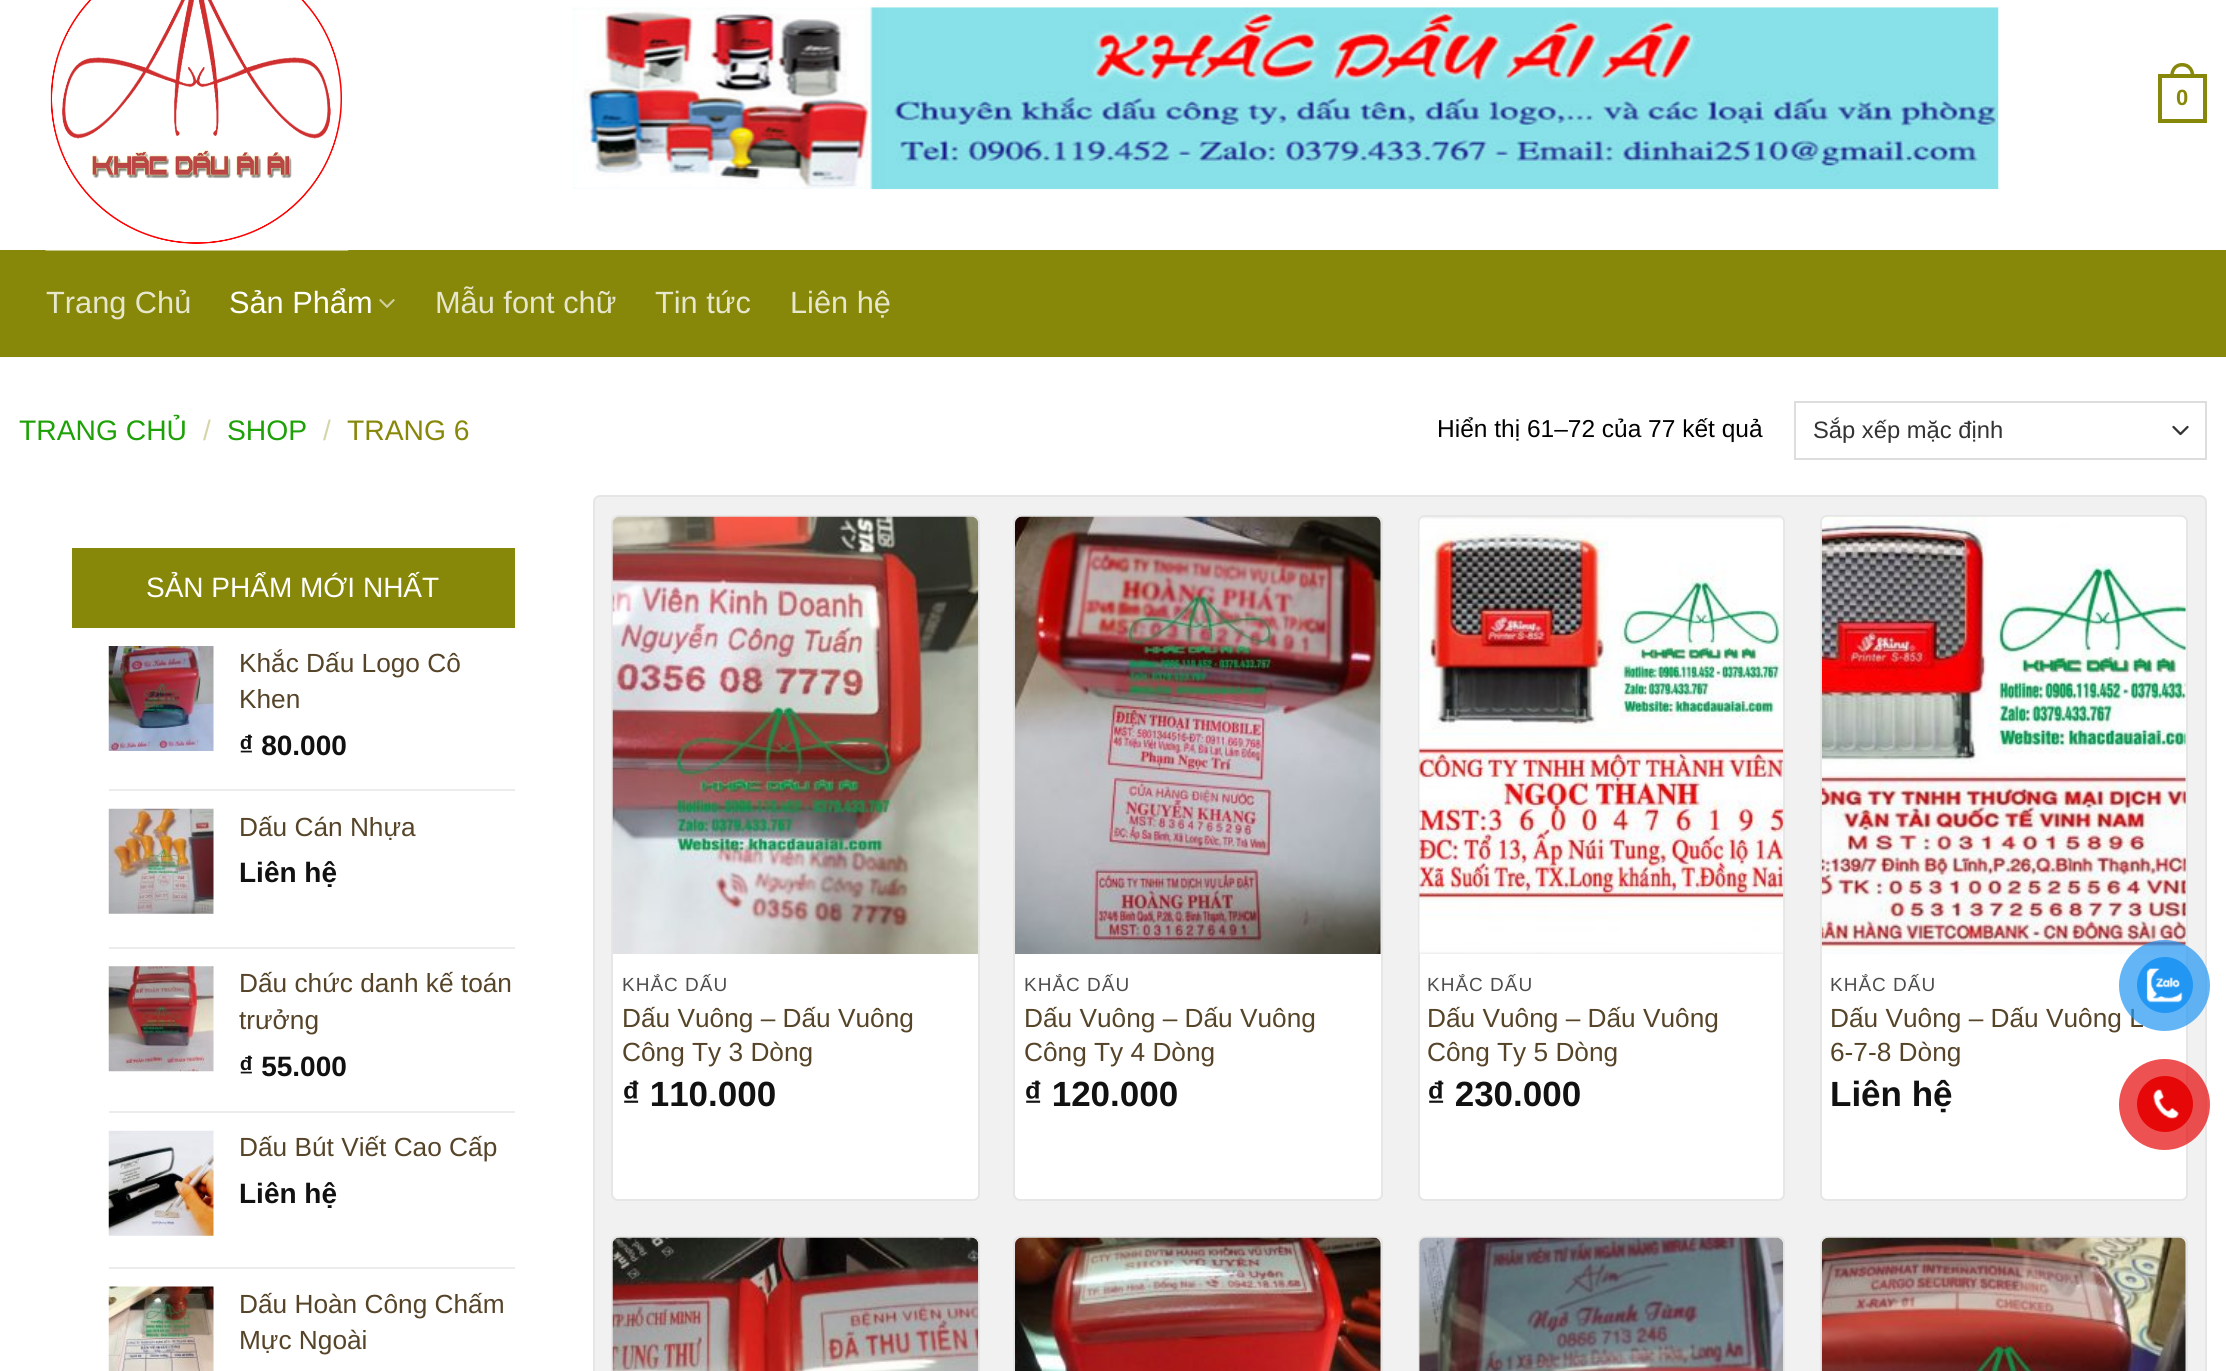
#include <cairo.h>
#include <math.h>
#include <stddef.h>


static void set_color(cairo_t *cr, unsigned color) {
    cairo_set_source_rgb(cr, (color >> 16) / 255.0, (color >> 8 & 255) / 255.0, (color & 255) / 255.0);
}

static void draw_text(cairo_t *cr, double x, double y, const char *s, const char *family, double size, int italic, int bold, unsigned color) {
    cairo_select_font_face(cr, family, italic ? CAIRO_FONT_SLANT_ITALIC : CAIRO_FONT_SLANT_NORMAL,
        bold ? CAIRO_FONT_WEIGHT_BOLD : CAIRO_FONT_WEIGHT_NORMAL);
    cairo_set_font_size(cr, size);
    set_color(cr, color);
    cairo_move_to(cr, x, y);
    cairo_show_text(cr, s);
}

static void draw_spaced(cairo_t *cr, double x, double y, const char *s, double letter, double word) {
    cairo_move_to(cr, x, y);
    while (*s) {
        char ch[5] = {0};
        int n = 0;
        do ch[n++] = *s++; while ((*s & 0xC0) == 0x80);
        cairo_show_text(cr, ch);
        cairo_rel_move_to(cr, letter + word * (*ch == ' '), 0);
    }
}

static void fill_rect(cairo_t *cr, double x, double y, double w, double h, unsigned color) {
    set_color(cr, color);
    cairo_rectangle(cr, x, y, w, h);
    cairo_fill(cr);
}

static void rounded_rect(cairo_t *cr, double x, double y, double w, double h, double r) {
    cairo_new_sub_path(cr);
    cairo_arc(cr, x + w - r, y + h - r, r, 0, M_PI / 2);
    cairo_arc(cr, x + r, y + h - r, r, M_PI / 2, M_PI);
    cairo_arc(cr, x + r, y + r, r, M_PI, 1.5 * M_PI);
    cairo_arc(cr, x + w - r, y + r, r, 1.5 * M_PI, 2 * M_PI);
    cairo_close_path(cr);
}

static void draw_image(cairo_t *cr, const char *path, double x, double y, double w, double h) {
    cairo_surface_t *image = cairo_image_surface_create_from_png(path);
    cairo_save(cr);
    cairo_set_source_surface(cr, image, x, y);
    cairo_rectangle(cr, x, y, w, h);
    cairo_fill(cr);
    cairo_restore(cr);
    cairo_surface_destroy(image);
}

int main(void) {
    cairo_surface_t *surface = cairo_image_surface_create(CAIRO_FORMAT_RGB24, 2226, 1371);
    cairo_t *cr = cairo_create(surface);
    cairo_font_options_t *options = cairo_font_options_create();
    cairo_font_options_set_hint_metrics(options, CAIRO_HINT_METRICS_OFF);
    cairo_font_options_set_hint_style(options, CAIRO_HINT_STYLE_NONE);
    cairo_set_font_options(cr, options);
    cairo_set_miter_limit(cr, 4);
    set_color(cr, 0xFFFFFF);
    cairo_paint(cr);
    fill_rect(cr, 0, 250, 2226, 107, 0x878709);
    draw_image(cr, "assets/img1.png", 45, 0, 304, 251);
    draw_image(cr, "assets/img2.png", 572, 7, 1427, 183);
    cairo_rectangle(cr, 2160, 76, 45, 45);
    cairo_set_line_width(cr, 4);
    cairo_stroke(cr);
    cairo_set_fill_rule(cr, CAIRO_FILL_RULE_EVEN_ODD);
    cairo_new_path(cr);
    cairo_move_to(cr, 2182, 63);
    cairo_curve_to(cr, 2190.5, 63, 2194.5, 69.5, 2194.5, 77);
    cairo_line_to(cr, 2170, 77);
    cairo_curve_to(cr, 2170, 69.5, 2174, 63, 2182, 63);
    cairo_close_path(cr);
    cairo_move_to(cr, 2182, 66.5);
    cairo_curve_to(cr, 2188.5, 66.5, 2191, 71.5, 2191, 77);
    cairo_line_to(cr, 2173.5, 77);
    cairo_curve_to(cr, 2173.5, 71.5, 2176, 66.5, 2182, 66.5);
    cairo_close_path(cr);
    cairo_fill(cr);
    draw_text(cr, 2176, 105, "0", "Liberation Sans", 22, 0, 1, 0x878709);
    draw_text(cr, 46, 313, "Trang Chủ", "Liberation Sans", 30.75, 0, 0, 0xE7E7CE);
    draw_text(cr, 229, 313, "Sản Phẩm", "Liberation Sans", 30.75, 0, 0, 0xFFFFFF);
    draw_image(cr, "assets/img3.png", 379, 299, 16, 9);
    draw_text(cr, 435, 313, "Mẫu font chữ", "Liberation Sans", 30.75, 0, 0, 0xE7E7CE);
    draw_text(cr, 655, 313, "Tin tức", "Liberation Sans", 30.75, 0, 0, 0xE7E7CE);
    draw_text(cr, 790, 313, "Liên hệ", "Liberation Sans", 30.75, 0, 0, 0xE7E7CE);
    draw_text(cr, 19, 440, "TRANG CHỦ", "Liberation Sans", 28.25, 0, 0, 0x1DA107);
    draw_text(cr, 203, 440, "/", "Liberation Sans", 28.25, 0, 0, 0xD5D5A9);
    draw_text(cr, 227, 440, "SHOP", "Liberation Sans", 28.25, 0, 0, 0x1DA107);
    draw_text(cr, 323, 440, "/", "Liberation Sans", 28.25, 0, 0, 0xD5D5A9);
    draw_text(cr, 347, 440, "TRANG 6", "Liberation Sans", 28.25, 0, 0, 0x878709);
    draw_text(cr, 1437, 437, "Hiển thị 61–72 của 77 kết quả", "Liberation Sans", 24.5, 0, 0, 0x000000);
    cairo_new_path(cr);
    cairo_move_to(cr, 2173.5, 427);
    cairo_line_to(cr, 2180.5, 434);
    cairo_line_to(cr, 2187.5, 427);
    set_color(cr, 0x333333);
    cairo_set_line_width(cr, 2.3);
    cairo_set_line_cap(cr, CAIRO_LINE_CAP_ROUND);
    cairo_set_line_join(cr, CAIRO_LINE_JOIN_ROUND);
    cairo_stroke(cr);
    cairo_rectangle(cr, 1795, 402, 411, 57);
    set_color(cr, 0xDDDDDD);
    cairo_set_line_width(cr, 2);
    cairo_set_line_cap(cr, CAIRO_LINE_CAP_BUTT);
    cairo_set_line_join(cr, CAIRO_LINE_JOIN_MITER);
    cairo_stroke(cr);
    draw_text(cr, 1813, 438, "Sắp xếp mặc định", "Liberation Sans", 23.75, 0, 0, 0x333333);
    fill_rect(cr, 72, 548, 443, 80, 0x878709);
    draw_text(cr, 146, 597, "SẢN PHẨM MỚI NHẤT", "Liberation Sans", 28, 0, 0, 0xFFFFFF);
    draw_image(cr, "assets/img4.png", 108, 646, 106, 105);
    draw_text(cr, 239, 672, "Khắc Dấu Logo Cô", "Liberation Sans", 26.25, 0, 0, 0x564429);
    draw_text(cr, 239, 708, "Khen", "Liberation Sans", 26.25, 0, 0, 0x564429);
    draw_text(cr, 239, 755, "₫ 80.000", "Liberation Sans", 28, 0, 1, 0x111111);
    fill_rect(cr, 109, 789, 406, 2, 0xECECEC);
    draw_image(cr, "assets/img5.png", 108, 808, 106, 106);
    draw_text(cr, 239, 836, "Dấu Cán Nhựa", "Liberation Sans", 26.25, 0, 0, 0x564429);
    draw_text(cr, 239, 882, "Liên hệ", "Liberation Sans", 28, 0, 1, 0x111111);
    fill_rect(cr, 109, 947, 406, 2, 0xECECEC);
    draw_image(cr, "assets/img6.png", 108, 966, 106, 106);
    draw_text(cr, 239, 992, "Dấu chức danh kế toán", "Liberation Sans", 26.25, 0, 0, 0x564429);
    draw_text(cr, 239, 1029, "trưởng", "Liberation Sans", 26.25, 0, 0, 0x564429);
    draw_text(cr, 239, 1076, "₫ 55.000", "Liberation Sans", 28, 0, 1, 0x111111);
    fill_rect(cr, 109, 1111, 406, 2, 0xECECEC);
    draw_image(cr, "assets/img7.png", 108, 1130, 106, 106);
    draw_text(cr, 239, 1156, "Dấu Bút Viết Cao Cấp", "Liberation Sans", 26.25, 0, 0, 0x564429);
    draw_text(cr, 239, 1203, "Liên hệ", "Liberation Sans", 28, 0, 1, 0x111111);
    fill_rect(cr, 109, 1267, 406, 2, 0xECECEC);
    draw_image(cr, "assets/img8.png", 108, 1286, 106, 85);
    draw_text(cr, 239, 1313, "Dấu Hoàn Công Chấm", "Liberation Sans", 26.25, 0, 0, 0x564429);
    draw_text(cr, 239, 1349, "Mực Ngoài", "Liberation Sans", 26.25, 0, 0, 0x564429);
    set_color(cr, 0xF1F1F1);
    rounded_rect(cr, 594, 496, 1612, 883, 6);
    cairo_fill_preserve(cr);
    set_color(cr, 0xE6E6E6);
    cairo_stroke(cr);
    set_color(cr, 0xFFFFFF);
    rounded_rect(cr, 612, 516, 367, 684, 6);
    cairo_fill_preserve(cr);
    set_color(cr, 0xE6E6E6);
    cairo_stroke(cr);
    draw_image(cr, "assets/img9.png", 612, 516, 367, 438);
    cairo_set_font_size(cr, 19);
    set_color(cr, 0x4D4D4D);
    draw_spaced(cr, 622, 991, "KHẮC DẤU", 1, 0);
    draw_text(cr, 622, 1027, "Dấu Vuông – Dấu Vuông", "Liberation Sans", 26.25, 0, 0, 0x564429);
    draw_text(cr, 622, 1061, "Công Ty 3 Dòng", "Liberation Sans", 26.25, 0, 0, 0x564429);
    draw_text(cr, 622, 1106, "₫ 110.000", "Liberation Sans", 35, 0, 1, 0x111111);
    set_color(cr, 0xFFFFFF);
    rounded_rect(cr, 1014, 516, 368, 684, 6);
    cairo_fill_preserve(cr);
    set_color(cr, 0xE6E6E6);
    cairo_stroke(cr);
    draw_image(cr, "assets/img10.png", 1015, 516, 366, 438);
    cairo_select_font_face(cr, "Liberation Sans", CAIRO_FONT_SLANT_NORMAL, CAIRO_FONT_WEIGHT_NORMAL);
    cairo_set_font_size(cr, 19);
    set_color(cr, 0x4D4D4D);
    draw_spaced(cr, 1024, 991, "KHẮC DẤU", 1, 0);
    draw_text(cr, 1024, 1027, "Dấu Vuông – Dấu Vuông", "Liberation Sans", 26.25, 0, 0, 0x564429);
    draw_text(cr, 1024, 1061, "Công Ty 4 Dòng", "Liberation Sans", 26.25, 0, 0, 0x564429);
    draw_text(cr, 1024, 1106, "₫ 120.000", "Liberation Sans", 35, 0, 1, 0x111111);
    set_color(cr, 0xFFFFFF);
    rounded_rect(cr, 1419, 516, 365, 684, 6);
    cairo_fill_preserve(cr);
    set_color(cr, 0xE6E6E6);
    cairo_stroke(cr);
    draw_image(cr, "assets/img11.png", 1419, 517, 365, 437);
    cairo_select_font_face(cr, "Liberation Sans", CAIRO_FONT_SLANT_NORMAL, CAIRO_FONT_WEIGHT_NORMAL);
    cairo_set_font_size(cr, 19);
    set_color(cr, 0x4D4D4D);
    draw_spaced(cr, 1427, 991, "KHẮC DẤU", 1, 0);
    draw_text(cr, 1427, 1027, "Dấu Vuông – Dấu Vuông", "Liberation Sans", 26.25, 0, 0, 0x564429);
    draw_text(cr, 1427, 1061, "Công Ty 5 Dòng", "Liberation Sans", 26.25, 0, 0, 0x564429);
    draw_text(cr, 1427, 1106, "₫ 230.000", "Liberation Sans", 35, 0, 1, 0x111111);
    set_color(cr, 0xFFFFFF);
    rounded_rect(cr, 1821, 516, 366, 684, 6);
    cairo_fill_preserve(cr);
    set_color(cr, 0xE6E6E6);
    cairo_stroke(cr);
    draw_image(cr, "assets/img12.png", 1821, 516, 365, 438);
    cairo_select_font_face(cr, "Liberation Sans", CAIRO_FONT_SLANT_NORMAL, CAIRO_FONT_WEIGHT_NORMAL);
    cairo_set_font_size(cr, 19);
    set_color(cr, 0x4D4D4D);
    draw_spaced(cr, 1830, 991, "KHẮC DẤU", 1, 0);
    draw_text(cr, 1830, 1027, "Dấu Vuông – Dấu Vuông L", "Liberation Sans", 26.25, 0, 0, 0x564429);
    draw_text(cr, 1830, 1061, "6-7-8 Dòng", "Liberation Sans", 26.25, 0, 0, 0x564429);
    draw_text(cr, 1830, 1106, "Liên hệ", "Liberation Sans", 35, 0, 1, 0x111111);
    set_color(cr, 0xFFFFFF);
    rounded_rect(cr, 612, 1237, 367, 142, 6);
    cairo_fill_preserve(cr);
    set_color(cr, 0xE6E6E6);
    cairo_stroke(cr);
    draw_image(cr, "assets/img13.png", 612, 1237, 367, 134);
    set_color(cr, 0xFFFFFF);
    rounded_rect(cr, 1014, 1237, 368, 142, 6);
    cairo_fill_preserve(cr);
    set_color(cr, 0xE6E6E6);
    cairo_stroke(cr);
    draw_image(cr, "assets/img14.png", 1015, 1237, 366, 134);
    set_color(cr, 0xFFFFFF);
    rounded_rect(cr, 1419, 1237, 365, 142, 6);
    cairo_fill_preserve(cr);
    set_color(cr, 0xE6E6E6);
    cairo_stroke(cr);
    draw_image(cr, "assets/img15.png", 1419, 1237, 365, 134);
    set_color(cr, 0xFFFFFF);
    rounded_rect(cr, 1821, 1237, 366, 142, 6);
    cairo_fill_preserve(cr);
    set_color(cr, 0xE6E6E6);
    cairo_stroke(cr);
    draw_image(cr, "assets/img16.png", 1821, 1237, 365, 134);
    cairo_set_source_rgba(cr, 0.129, 0.588, 0.953, 0.7);
    cairo_arc(cr, 2164.5, 985.5, 45.5, 0, 2 * M_PI);
    cairo_fill(cr);
    set_color(cr, 0x2196F3);
    cairo_arc(cr, 2165, 985, 28, 0, 2 * M_PI);
    cairo_fill(cr);
    draw_image(cr, "assets/img17.png", 2146, 968, 37, 35);
    cairo_set_source_rgba(cr, 0.902, 0.031, 0.031, 0.7);
    cairo_arc(cr, 2164.5, 1104.5, 45.5, 0, 2 * M_PI);
    cairo_fill(cr);
    set_color(cr, 0xE60808);
    cairo_arc(cr, 2165, 1104, 28, 0, 2 * M_PI);
    cairo_fill(cr);
    draw_image(cr, "assets/img18.png", 2153, 1089, 26, 30);
    cairo_surface_write_to_png(surface, "output.png");
    cairo_font_options_destroy(options);
    cairo_destroy(cr);
    cairo_surface_destroy(surface);
    return 0;
}
